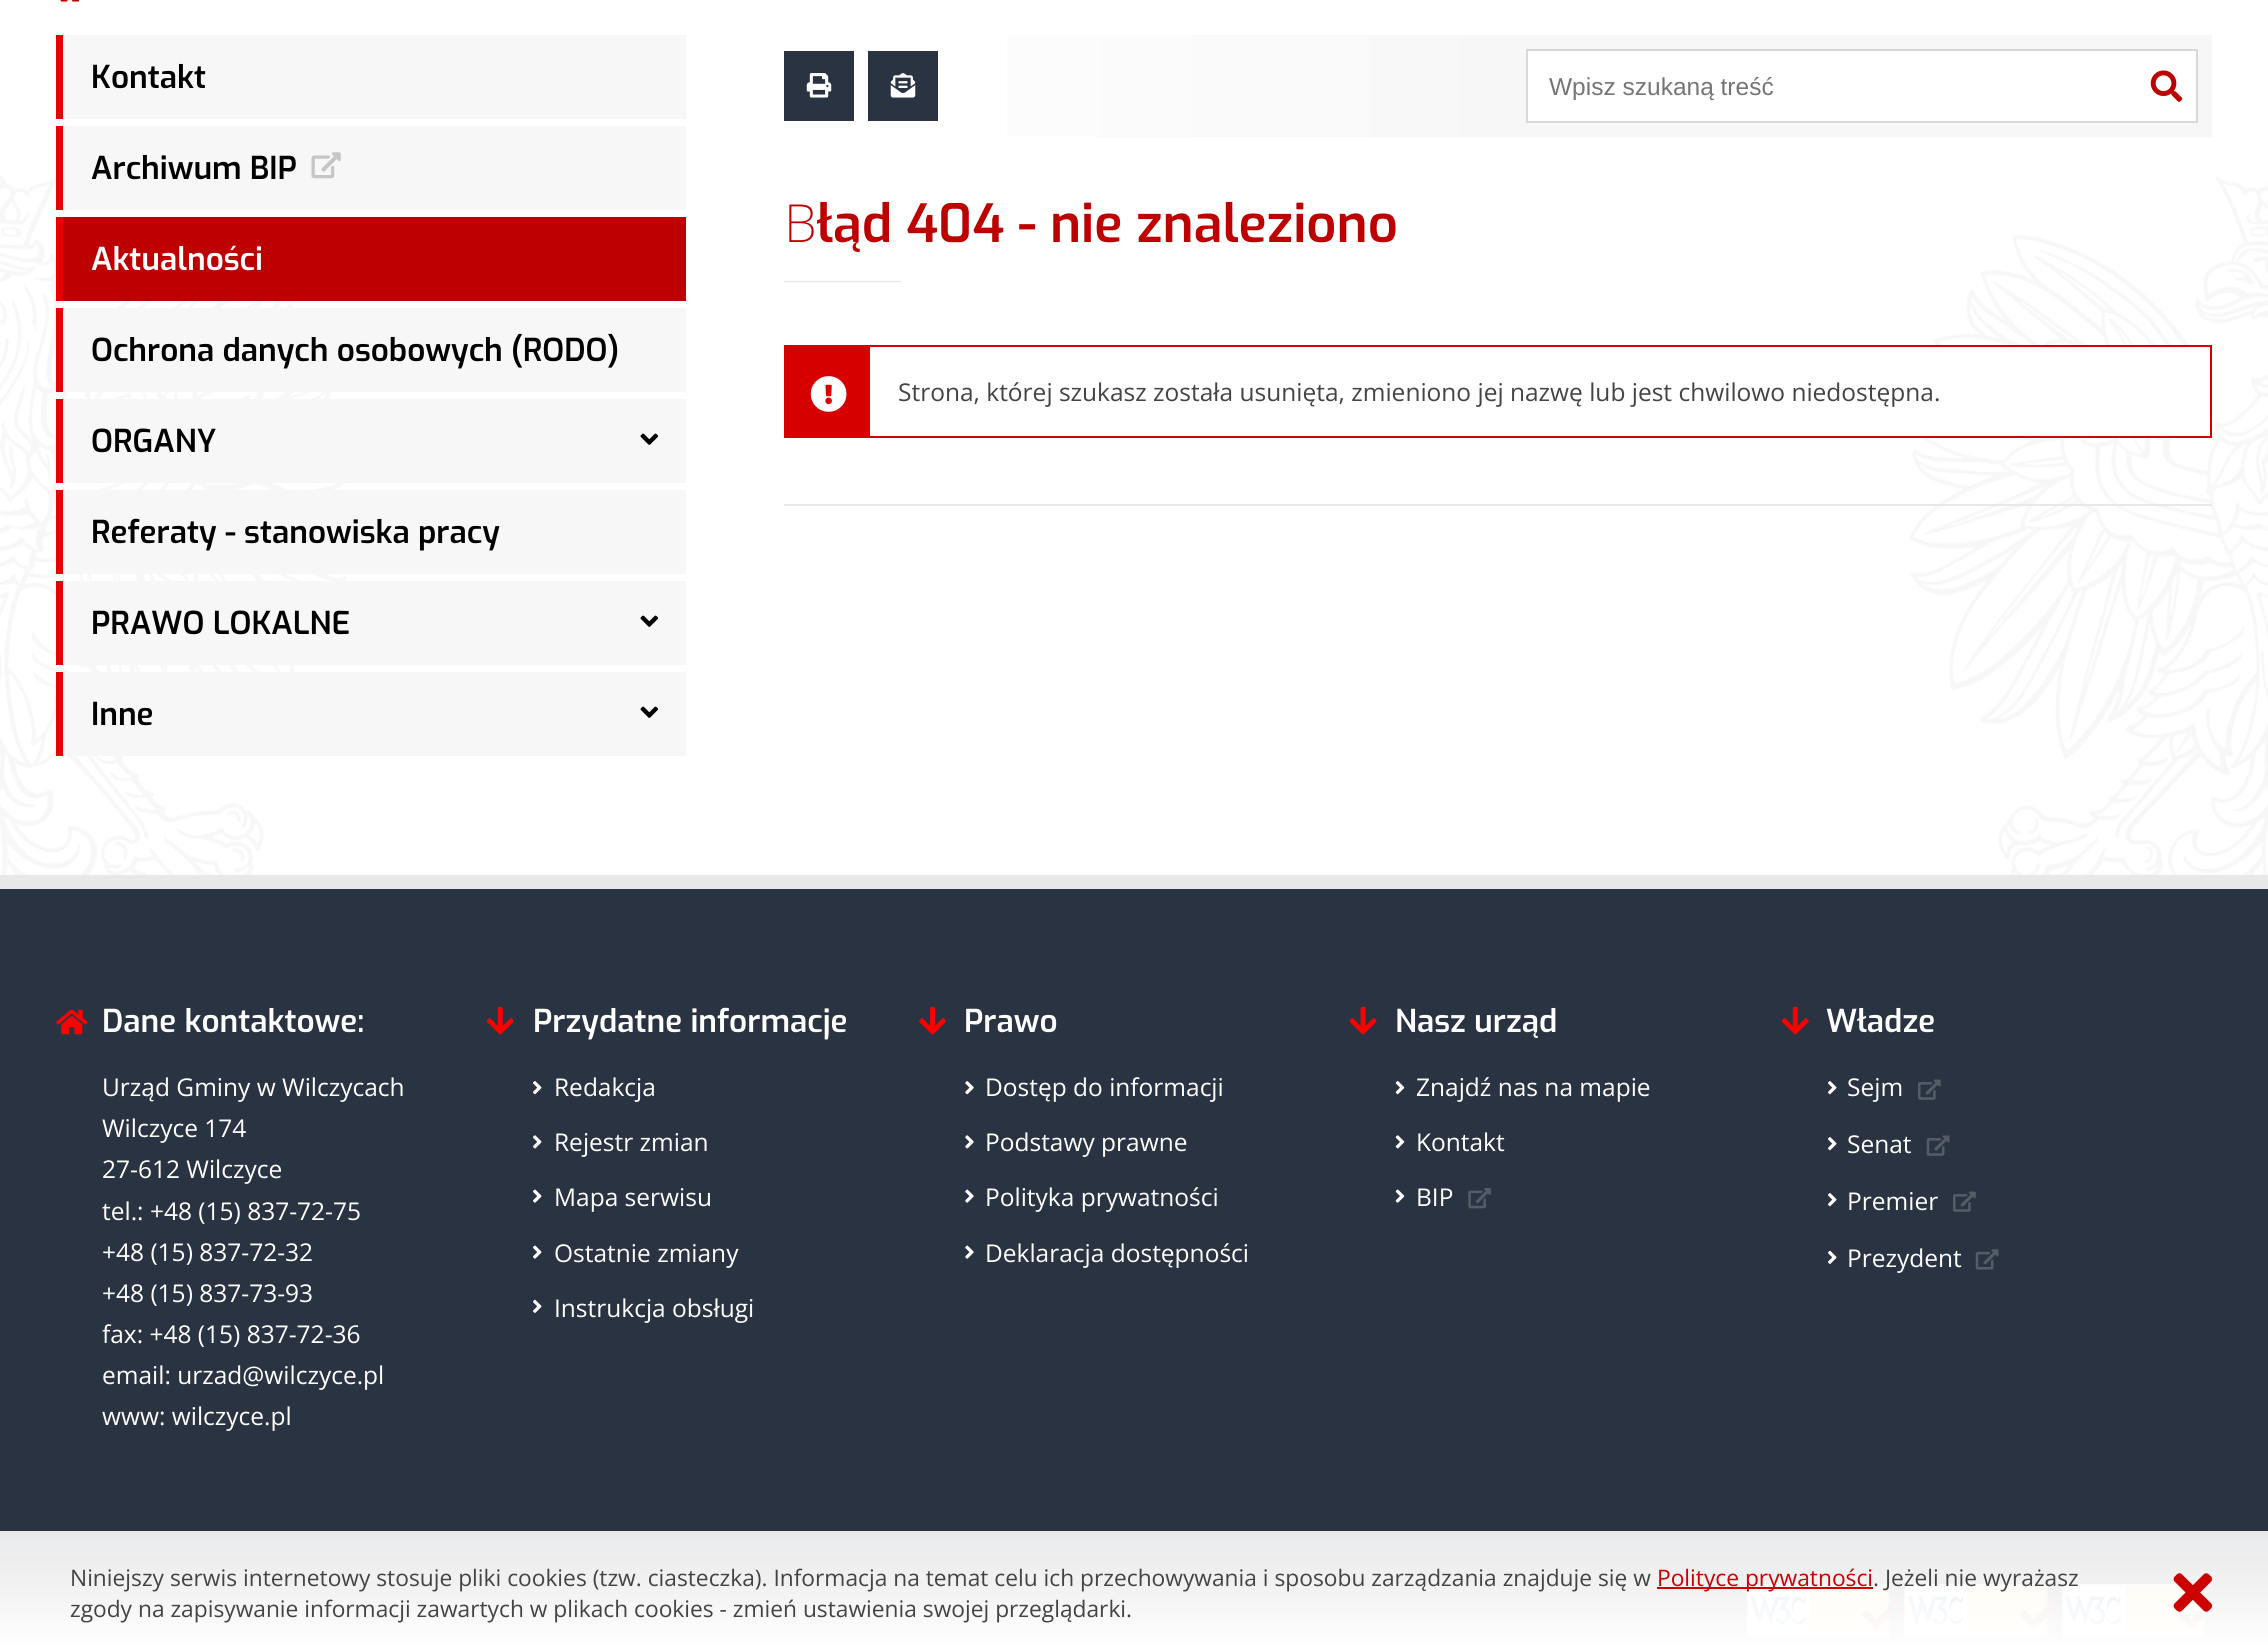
#include <cairo.h>
#include <math.h>
#include <stddef.h>


static void set_color(cairo_t *cr, unsigned color) {
    cairo_set_source_rgb(cr, (color >> 16) / 255.0, (color >> 8 & 255) / 255.0, (color & 255) / 255.0);
}

static void draw_text(cairo_t *cr, double x, double y, const char *s, const char *family, double size, int italic, int bold, unsigned color) {
    cairo_select_font_face(cr, family, italic ? CAIRO_FONT_SLANT_ITALIC : CAIRO_FONT_SLANT_NORMAL,
        bold ? CAIRO_FONT_WEIGHT_BOLD : CAIRO_FONT_WEIGHT_NORMAL);
    cairo_set_font_size(cr, size);
    set_color(cr, color);
    cairo_move_to(cr, x, y);
    cairo_show_text(cr, s);
}

static void fill_rect(cairo_t *cr, double x, double y, double w, double h, unsigned color) {
    set_color(cr, color);
    cairo_rectangle(cr, x, y, w, h);
    cairo_fill(cr);
}

static void draw_image(cairo_t *cr, const char *path, double x, double y, double w, double h) {
    cairo_surface_t *image = cairo_image_surface_create_from_png(path);
    cairo_save(cr);
    cairo_set_source_surface(cr, image, x, y);
    cairo_rectangle(cr, x, y, w, h);
    cairo_fill(cr);
    cairo_restore(cr);
    cairo_surface_destroy(image);
}

int main(void) {
    cairo_surface_t *surface = cairo_image_surface_create(CAIRO_FORMAT_RGB24, 2268, 1651);
    cairo_t *cr = cairo_create(surface);
    cairo_font_options_t *options = cairo_font_options_create();
    cairo_font_options_set_hint_metrics(options, CAIRO_HINT_METRICS_OFF);
    cairo_font_options_set_hint_style(options, CAIRO_HINT_STYLE_NONE);
    cairo_set_font_options(cr, options);
    cairo_set_miter_limit(cr, 4);
    cairo_pattern_t *gradient;
    set_color(cr, 0xFFFFFF);
    cairo_paint(cr);
    draw_image(cr, "assets/img1.png", 60, 0, 19, 2);
    draw_image(cr, "assets/img2.png", 0, 175, 2268, 700);
    fill_rect(cr, 63, 35, 623, 84, 0xF7F7F7);
    fill_rect(cr, 56, 35, 7, 84, 0xE70000);
    draw_text(cr, 91, 88, "Kontakt", "Exo SemiBold", 31.5, 0, 0, 0x000000);
    fill_rect(cr, 63, 126, 623, 84, 0xF7F7F7);
    fill_rect(cr, 56, 126, 7, 84, 0xE70000);
    draw_text(cr, 91, 179, "Archiwum BIP", "Exo SemiBold", 31.5, 0, 0, 0x000000);
    draw_image(cr, "assets/img3.png", 311, 152, 30, 27);
    fill_rect(cr, 56, 217, 7, 84, 0xE70000);
    fill_rect(cr, 63, 217, 623, 84, 0xBD0000);
    draw_text(cr, 91, 270, "Aktualności", "Exo SemiBold", 31.5, 0, 0, 0xFFFFFF);
    fill_rect(cr, 63, 308, 623, 84, 0xF7F7F7);
    fill_rect(cr, 56, 308, 7, 84, 0xE70000);
    draw_text(cr, 91, 361, "Ochrona danych osobowych (RODO)", "Exo SemiBold", 31.5, 0, 0, 0x000000);
    fill_rect(cr, 63, 399, 623, 84, 0xF7F7F7);
    fill_rect(cr, 56, 399, 7, 84, 0xE70000);
    draw_text(cr, 91, 452, "ORGANY", "Exo SemiBold", 31.5, 0, 0, 0x000000);
    draw_image(cr, "assets/img4.png", 640, 433, 18, 12);
    fill_rect(cr, 63, 490, 623, 84, 0xF7F7F7);
    fill_rect(cr, 56, 490, 7, 84, 0xE70000);
    draw_text(cr, 91, 543, "Referaty - stanowiska pracy", "Exo SemiBold", 31.5, 0, 0, 0x000000);
    fill_rect(cr, 63, 581, 623, 84, 0xF7F7F7);
    fill_rect(cr, 56, 581, 7, 84, 0xE70000);
    draw_text(cr, 91, 634, "PRAWO LOKALNE", "Exo SemiBold", 31.5, 0, 0, 0x000000);
    draw_image(cr, "assets/img4.png", 640, 615, 18, 12);
    fill_rect(cr, 63, 672, 623, 84, 0xF7F7F7);
    fill_rect(cr, 56, 672, 7, 84, 0xE70000);
    draw_text(cr, 91, 725, "Inne", "Exo SemiBold", 31.5, 0, 0, 0x000000);
    draw_image(cr, "assets/img4.png", 640, 706, 18, 12);
    gradient = cairo_pattern_create_linear(784, 86, 2212, 86);
    cairo_pattern_add_color_stop_rgba(gradient, 0, 1, 1, 1, 1);
    cairo_pattern_add_color_stop_rgba(gradient, 0.5, 0.969, 0.969, 0.969, 1);
    cairo_pattern_add_color_stop_rgba(gradient, 1, 0.969, 0.969, 0.969, 1);
    cairo_set_source(cr, gradient);
    cairo_pattern_destroy(gradient);
    cairo_rectangle(cr, 1007, 35, 1205, 102);
    cairo_fill(cr);
    fill_rect(cr, 784, 51, 70, 70, 0x2A3341);
    draw_image(cr, "assets/img5.png", 806, 73, 26, 25);
    fill_rect(cr, 868, 51, 70, 70, 0x2A3341);
    draw_image(cr, "assets/img6.png", 890, 73, 26, 25);
    cairo_rectangle(cr, 1527, 50, 670, 72);
    set_color(cr, 0xD8D8D8);
    cairo_stroke(cr);
    fill_rect(cr, 1528, 51, 668, 70, 0xFFFFFF);
    draw_text(cr, 1549, 95, "Wpisz szukaną treść", "Liberation Sans", 24.5, 0, 0, 0x757575);
    draw_image(cr, "assets/img7.png", 2150, 70, 33, 32);
    draw_text(cr, 784, 242, "B", "Noto Sans ExtraLight", 52.5, 0, 0, 0xBD0000);
    draw_text(cr, 817, 242, "łąd 404 - nie znaleziono", "Exo SemiBold", 52.5, 0, 0, 0xBD0000);
    draw_text(cr, 784, 278, "__________", "Liberation Sans", 21, 0, 0, 0xE8E8E8);
    fill_rect(cr, 784, 504, 1428, 2, 0xE8E8E8);
    fill_rect(cr, 786, 347, 84, 89, 0xD60000);
    fill_rect(cr, 1906, 347, 297, 89, 0xFFFFFF);
    cairo_rectangle(cr, 785, 346, 1426, 91);
    set_color(cr, 0xD60000);
    cairo_stroke(cr);
    draw_image(cr, "assets/img8.png", 810, 376, 37, 36);
    draw_text(cr, 898, 401, "Strona, której szukasz została usunięta, zmieniono jej nazwę lub jest chwilowo niedostępna.", "Open Sans", 24.5, 0, 0, 0x444444);
    fill_rect(cr, 0, 889, 2268, 667, 0x2A3341);
    fill_rect(cr, 0, 875, 2268, 14, 0xE8E8E8);
    draw_image(cr, "assets/img9.png", 56, 1009, 32, 26);
    draw_text(cr, 102, 1032, "Dane kontaktowe:", "Exo SemiBold", 31.5, 0, 0, 0xFFFFFF);
    draw_text(cr, 102, 1096, "Urząd Gminy w Wilczycach", "Open Sans", 24.5, 0, 0, 0xFFFFFF);
    draw_text(cr, 102, 1137, "Wilczyce 174", "Open Sans", 24.5, 0, 0, 0xFFFFFF);
    draw_text(cr, 102, 1178, "27-612 Wilczyce", "Open Sans", 24.5, 0, 0, 0xFFFFFF);
    draw_text(cr, 102, 1220, "tel.: +48 (15) 837-72-75", "Open Sans", 24.5, 0, 0, 0xFFFFFF);
    draw_text(cr, 102, 1261, "+48 (15) 837-72-32", "Open Sans", 24.5, 0, 0, 0xFFFFFF);
    draw_text(cr, 102, 1302, "+48 (15) 837-73-93", "Open Sans", 24.5, 0, 0, 0xFFFFFF);
    draw_text(cr, 102, 1343, "fax: +48 (15) 837-72-36", "Open Sans", 24.5, 0, 0, 0xFFFFFF);
    draw_text(cr, 102, 1384, "email: urzad@wilczyce.pl", "Open Sans", 24.5, 0, 0, 0xFFFFFF);
    draw_text(cr, 102, 1425, "www: wilczyce.pl", "Open Sans", 24.5, 0, 0, 0xFFFFFF);
    draw_image(cr, "assets/img10.png", 486, 1006, 28, 29);
    draw_text(cr, 533, 1032, "Przydatne informacje", "Exo SemiBold", 31.5, 0, 0, 0xFFFFFF);
    draw_image(cr, "assets/img11.png", 533, 1081, 9, 14);
    draw_text(cr, 554, 1096, "Redakcja", "Open Sans", 24.5, 0, 0, 0xFFFFFF);
    draw_image(cr, "assets/img12.png", 533, 1135, 9, 14);
    draw_text(cr, 554, 1151, "Rejestr zmian", "Open Sans", 24.5, 0, 0, 0xFFFFFF);
    draw_image(cr, "assets/img13.png", 533, 1189, 9, 14);
    draw_text(cr, 554, 1206, "Mapa serwisu", "Open Sans", 24.5, 0, 0, 0xFFFFFF);
    draw_image(cr, "assets/img13.png", 533, 1245, 9, 14);
    draw_text(cr, 554, 1262, "Ostatnie zmiany", "Open Sans", 24.5, 0, 0, 0xFFFFFF);
    draw_image(cr, "assets/img14.png", 533, 1299, 9, 14);
    draw_text(cr, 554, 1317, "Instrukcja obsługi", "Open Sans", 24.5, 0, 0, 0xFFFFFF);
    draw_image(cr, "assets/img15.png", 919, 1006, 27, 29);
    draw_text(cr, 964, 1032, "Prawo", "Exo SemiBold", 31.5, 0, 0, 0xFFFFFF);
    draw_image(cr, "assets/img16.png", 965, 1081, 9, 14);
    draw_text(cr, 985, 1096, "Dostęp do informacji", "Open Sans", 24.5, 0, 0, 0xFFFFFF);
    draw_image(cr, "assets/img17.png", 965, 1135, 9, 14);
    draw_text(cr, 985, 1151, "Podstawy prawne", "Open Sans", 24.5, 0, 0, 0xFFFFFF);
    draw_image(cr, "assets/img18.png", 965, 1189, 9, 14);
    draw_text(cr, 985, 1206, "Polityka prywatności", "Open Sans", 24.5, 0, 0, 0xFFFFFF);
    draw_image(cr, "assets/img18.png", 965, 1245, 9, 14);
    draw_text(cr, 985, 1262, "Deklaracja dostępności", "Open Sans", 24.5, 0, 0, 0xFFFFFF);
    draw_image(cr, "assets/img19.png", 1349, 1006, 28, 29);
    draw_text(cr, 1395, 1032, "Nasz urząd", "Exo SemiBold", 31.5, 0, 0, 0xFFFFFF);
    draw_image(cr, "assets/img20.png", 1395, 1081, 10, 14);
    draw_text(cr, 1416, 1096, "Znajdź nas na mapie", "Open Sans", 24.5, 0, 0, 0xFFFFFF);
    draw_image(cr, "assets/img21.png", 1395, 1135, 10, 14);
    draw_text(cr, 1416, 1151, "Kontakt", "Open Sans", 24.5, 0, 0, 0xFFFFFF);
    draw_image(cr, "assets/img22.png", 1395, 1189, 10, 14);
    draw_text(cr, 1416, 1206, "BIP", "Open Sans", 24.5, 0, 0, 0xFFFFFF);
    draw_image(cr, "assets/img23.png", 1468, 1188, 23, 21);
    draw_image(cr, "assets/img10.png", 1781, 1006, 28, 29);
    draw_text(cr, 1826, 1032, "Władze", "Exo SemiBold", 31.5, 0, 0, 0xFFFFFF);
    draw_image(cr, "assets/img11.png", 1828, 1081, 9, 14);
    draw_text(cr, 1847, 1096, "Sejm", "Open Sans", 24.5, 0, 0, 0xFFFFFF);
    draw_image(cr, "assets/img24.png", 1918, 1079, 23, 21);
    draw_image(cr, "assets/img11.png", 1828, 1137, 9, 14);
    draw_text(cr, 1847, 1153, "Senat", "Open Sans", 24.5, 0, 0, 0xFFFFFF);
    draw_image(cr, "assets/img25.png", 1926, 1135, 24, 21);
    draw_image(cr, "assets/img11.png", 1828, 1193, 9, 14);
    draw_text(cr, 1847, 1210, "Premier", "Open Sans", 24.5, 0, 0, 0xFFFFFF);
    draw_image(cr, "assets/img24.png", 1953, 1191, 23, 21);
    draw_image(cr, "assets/img14.png", 1828, 1250, 9, 14);
    draw_text(cr, 1847, 1267, "Prezydent", "Open Sans", 24.5, 0, 0, 0xFFFFFF);
    draw_image(cr, "assets/img26.png", 1975, 1249, 24, 21);
    fill_rect(cr, 0, 1556, 2268, 89, 0x181818);
    fill_rect(cr, 1749, 1586, 61, 50, 0xFFFFFF);
    fill_rect(cr, 1810, 1586, 78, 50, 0xFFCC66);
    fill_rect(cr, 1747, 1584, 143, 2, 0xCCCCCC);
    fill_rect(cr, 1888, 1584, 2, 54, 0x888888);
    fill_rect(cr, 1747, 1636, 143, 2, 0x888888);
    fill_rect(cr, 1747, 1584, 2, 54, 0xCCCCCC);
    draw_image(cr, "assets/img27.png", 1750, 1596, 56, 29);
    draw_image(cr, "assets/img28.png", 1862, 1600, 39, 30);
    fill_rect(cr, 1906, 1586, 61, 50, 0xFFFFFF);
    fill_rect(cr, 1967, 1586, 79, 50, 0xFFCC66);
    fill_rect(cr, 1904, 1584, 144, 2, 0xCCCCCC);
    fill_rect(cr, 2046, 1584, 2, 54, 0x888888);
    fill_rect(cr, 1904, 1636, 144, 2, 0x888888);
    fill_rect(cr, 1904, 1584, 2, 54, 0xCCCCCC);
    draw_image(cr, "assets/img29.png", 1907, 1596, 57, 29);
    draw_image(cr, "assets/img30.png", 2019, 1600, 39, 30);
    fill_rect(cr, 2064, 1586, 61, 50, 0xFFFFFF);
    fill_rect(cr, 2125, 1586, 78, 50, 0xFFCC66);
    fill_rect(cr, 2062, 1584, 132, 2, 0xCCCCCC);
    fill_rect(cr, 2203, 1584, 2, 54, 0x888888);
    fill_rect(cr, 2062, 1636, 143, 2, 0x888888);
    fill_rect(cr, 2062, 1584, 2, 54, 0xCCCCCC);
    draw_image(cr, "assets/img31.png", 2065, 1596, 56, 29);
    draw_image(cr, "assets/img32.png", 2177, 1600, 39, 30);
    gradient = cairo_pattern_create_linear(1134, 1533, 1134, 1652);
    cairo_pattern_add_color_stop_rgba(gradient, 0, 1, 1, 1, 0.9);
    cairo_pattern_add_color_stop_rgba(gradient, 1, 1, 1, 1, 1);
    cairo_set_source(cr, gradient);
    cairo_pattern_destroy(gradient);
    cairo_rectangle(cr, 0, 1533, 2268, 112);
    cairo_fill(cr);
    fill_rect(cr, 0, 1531, 2268, 2, 0xE6E6E6);
    draw_text(cr, 70, 1586, "Niniejszy serwis internetowy stosuje pliki cookies (tzw. ciasteczka). Informacja na temat celu ich przechowywania i sposobu zarządzania znajduje się w", "Open Sans", 22.75, 0, 0, 0x444444);
    fill_rect(cr, 1657, 1587, 216, 2, 0xCD0000);
    draw_text(cr, 1657, 1586, "Polityce prywatności", "Open Sans", 22.75, 0, 0, 0xCD0000);
    draw_text(cr, 1873, 1586, ". Jeżeli nie wyrażasz", "Open Sans", 22.75, 0, 0, 0x444444);
    draw_text(cr, 70, 1617, "zgody na zapisywanie informacji zawartych w plikach cookies - zmień ustawienia swojej przeglądarki.", "Open Sans", 22.75, 0, 0, 0x444444);
    draw_image(cr, "assets/img33.png", 2173, 1573, 40, 39);
    cairo_surface_write_to_png(surface, "output.png");
    cairo_font_options_destroy(options);
    cairo_destroy(cr);
    cairo_surface_destroy(surface);
    return 0;
}
